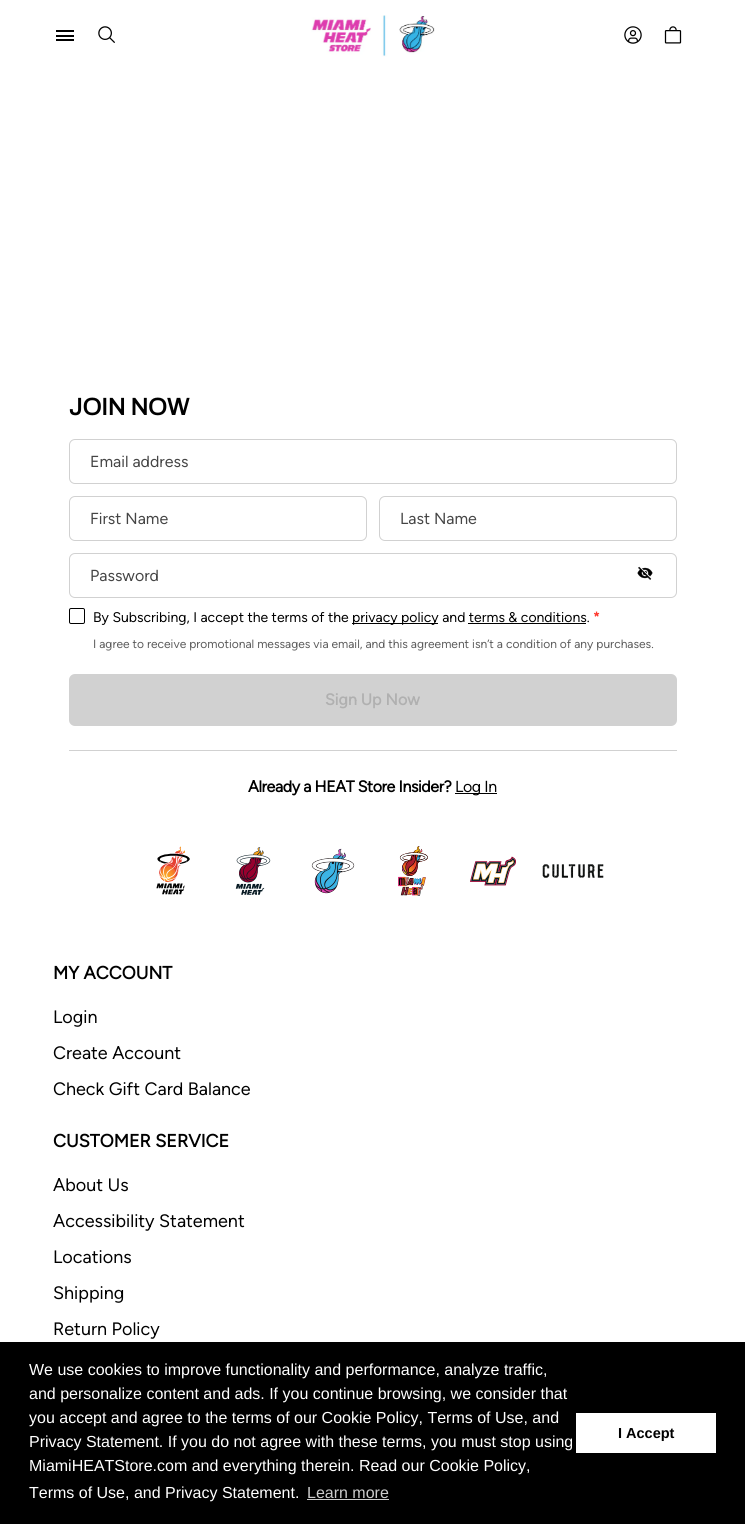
#include <cairo.h>
#include <math.h>
#include <stddef.h>


static void set_color(cairo_t *cr, unsigned color) {
    cairo_set_source_rgb(cr, (color >> 16) / 255.0, (color >> 8 & 255) / 255.0, (color & 255) / 255.0);
}

static void draw_text(cairo_t *cr, double x, double y, const char *s, const char *family, double size, int italic, int bold, unsigned color) {
    cairo_select_font_face(cr, family, italic ? CAIRO_FONT_SLANT_ITALIC : CAIRO_FONT_SLANT_NORMAL,
        bold ? CAIRO_FONT_WEIGHT_BOLD : CAIRO_FONT_WEIGHT_NORMAL);
    cairo_set_font_size(cr, size);
    set_color(cr, color);
    cairo_move_to(cr, x, y);
    cairo_show_text(cr, s);
}

static void draw_spaced(cairo_t *cr, double x, double y, const char *s, double letter, double word) {
    cairo_move_to(cr, x, y);
    while (*s) {
        char ch[5] = {0};
        int n = 0;
        do ch[n++] = *s++; while ((*s & 0xC0) == 0x80);
        cairo_show_text(cr, ch);
        cairo_rel_move_to(cr, letter + word * (*ch == ' '), 0);
    }
}

static void fill_rect(cairo_t *cr, double x, double y, double w, double h, unsigned color) {
    set_color(cr, color);
    cairo_rectangle(cr, x, y, w, h);
    cairo_fill(cr);
}

static void rounded_rect(cairo_t *cr, double x, double y, double w, double h, double r) {
    cairo_new_sub_path(cr);
    cairo_arc(cr, x + w - r, y + h - r, r, 0, M_PI / 2);
    cairo_arc(cr, x + r, y + h - r, r, M_PI / 2, M_PI);
    cairo_arc(cr, x + r, y + r, r, M_PI, 1.5 * M_PI);
    cairo_arc(cr, x + w - r, y + r, r, 1.5 * M_PI, 2 * M_PI);
    cairo_close_path(cr);
}

static void draw_image(cairo_t *cr, const char *path, double x, double y, double w, double h) {
    cairo_surface_t *image = cairo_image_surface_create_from_png(path);
    cairo_save(cr);
    cairo_set_source_surface(cr, image, x, y);
    cairo_rectangle(cr, x, y, w, h);
    cairo_fill(cr);
    cairo_restore(cr);
    cairo_surface_destroy(image);
}

int main(void) {
    cairo_surface_t *surface = cairo_image_surface_create(CAIRO_FORMAT_RGB24, 745, 1524);
    cairo_t *cr = cairo_create(surface);
    cairo_font_options_t *options = cairo_font_options_create();
    cairo_font_options_set_hint_metrics(options, CAIRO_HINT_METRICS_OFF);
    cairo_font_options_set_hint_style(options, CAIRO_HINT_STYLE_NONE);
    cairo_set_font_options(cr, options);
    cairo_set_miter_limit(cr, 4);
    set_color(cr, 0xFFFFFF);
    cairo_paint(cr);
    draw_image(cr, "assets/img1.png", 56, 30, 18, 11);
    draw_image(cr, "assets/img2.png", 98, 26, 17, 17);
    draw_image(cr, "assets/img3.png", 311, 15, 124, 42);
    draw_image(cr, "assets/img4.png", 624, 26, 18, 18);
    draw_image(cr, "assets/img5.png", 664, 26, 18, 18);
    draw_text(cr, 69, 415, "JOIN NOW", "Archivo", 24, 0, 1, 0x000000);
    rounded_rect(cr, 69.5, 439.5, 607, 44, 5.5);
    set_color(cr, 0xD1D1D1);
    cairo_set_line_width(cr, 1);
    cairo_stroke(cr);
    draw_text(cr, 90, 467, "Email address", "Figtree", 16, 0, 0, 0x454545);
    rounded_rect(cr, 69.5, 496.5, 297, 44, 5.5);
    set_color(cr, 0xD1D1D1);
    cairo_stroke(cr);
    draw_text(cr, 90, 524, "First Name", "Figtree", 16, 0, 0, 0x454545);
    rounded_rect(cr, 379.5, 496.5, 297, 44, 5.5);
    set_color(cr, 0xD1D1D1);
    cairo_stroke(cr);
    draw_text(cr, 400, 524, "Last Name", "Figtree", 16, 0, 0, 0x454545);
    rounded_rect(cr, 69.5, 553.5, 607, 44, 5.5);
    set_color(cr, 0xD1D1D1);
    cairo_stroke(cr);
    draw_text(cr, 90, 581, "Password", "Figtree", 16, 0, 0, 0x454545);
    draw_image(cr, "assets/img6.png", 637, 566, 16, 14);
    rounded_rect(cr, 69.5, 608.5, 15, 15, 1.5);
    set_color(cr, 0x000000);
    cairo_stroke(cr);
    draw_text(cr, 93, 622, "By Subscribing, I accept the terms of the", "Figtree", 14, 0, 0, 0x000000);
    fill_rect(cr, 352, 623, 86, 1, 0x000000);
    draw_text(cr, 352, 622, "privacy policy and terms & conditions.", "Figtree", 14, 0, 0, 0x000000);
    draw_text(cr, 593, 622, "*", "Figtree", 14, 0, 1, 0xFF3B30);
    fill_rect(cr, 468, 623, 118, 1, 0x000000);
    draw_text(cr, 93, 648, "I agree to receive promotional messages via email, and this agreement isn’t a condition of any purchases.", "Figtree", 12, 0, 0, 0x5D5D5D);
    set_color(cr, 0xD1D1D1);
    rounded_rect(cr, 69, 674, 608, 52, 6);
    cairo_fill(cr);
    draw_text(cr, 325, 705, "Sign Up Now", "Figtree", 16, 0, 1, 0xB0B0B0);
    fill_rect(cr, 69, 750, 608, 1, 0xD1D1D1);
    set_color(cr, 0x000000);
    draw_spaced(cr, 248, 792, "Already a HEAT Store Insider?", -0.4, 0);
    fill_rect(cr, 455, 793, 42, 1, 0x000000);
    cairo_select_font_face(cr, "Figtree", CAIRO_FONT_SLANT_NORMAL, CAIRO_FONT_WEIGHT_NORMAL);
    draw_spaced(cr, 455, 792, "Log In", -0.4, 0);
    draw_image(cr, "assets/img7.png", 156, 846, 34, 49);
    draw_image(cr, "assets/img8.png", 235, 847, 36, 48);
    draw_image(cr, "assets/img9.png", 311, 848, 44, 46);
    draw_image(cr, "assets/img10.png", 398, 846, 30, 50);
    draw_image(cr, "assets/img11.png", 470, 856, 46, 30);
    draw_image(cr, "assets/img12.png", 542, 864, 62, 14);
    draw_text(cr, 53, 979, "MY ACCOUNT", "Figtree", 18, 0, 1, 0x000000);
    draw_text(cr, 53, 1023, "Login", "Figtree", 18, 0, 0, 0x000000);
    draw_text(cr, 53, 1059, "Create Account", "Figtree", 18, 0, 0, 0x000000);
    draw_text(cr, 53, 1095, "Check Gift Card Balance", "Figtree", 18, 0, 0, 0x000000);
    draw_text(cr, 53, 1147, "CUSTOMER SERVICE", "Figtree", 18, 0, 1, 0x000000);
    draw_text(cr, 53, 1191, "About Us", "Figtree", 18, 0, 0, 0x000000);
    draw_text(cr, 53, 1227, "Accessibility Statement", "Figtree", 18, 0, 0, 0x000000);
    draw_text(cr, 53, 1263, "Locations", "Figtree", 18, 0, 0, 0x000000);
    draw_text(cr, 53, 1299, "Shipping", "Figtree", 18, 0, 0, 0x000000);
    draw_text(cr, 53, 1335, "Return Policy", "Figtree", 18, 0, 0, 0x000000);
    fill_rect(cr, 0, 1342, 745, 182, 0x000000);
    draw_text(cr, 29, 1375, "We use cookies to improve functionality and performance, analyze traffic,", "Liberation Sans", 16, 0, 0, 0xFFFFFF);
    draw_text(cr, 29, 1399, "and personalize content and ads. If you continue browsing, we consider that", "Liberation Sans", 16, 0, 0, 0xFFFFFF);
    draw_text(cr, 29, 1423, "you accept and agree to the terms of our Cookie Policy, Terms of Use, and", "Liberation Sans", 16, 0, 0, 0xFFFFFF);
    draw_text(cr, 29, 1447, "Privacy Statement. If you do not agree with these terms, you must stop using", "Liberation Sans", 16, 0, 0, 0xFFFFFF);
    draw_text(cr, 29, 1471, "MiamiHEATStore.com and everything therein. Read our Cookie Policy,", "Liberation Sans", 16, 0, 0, 0xFFFFFF);
    draw_text(cr, 29, 1498, "Terms of Use, and Privacy Statement.", "Liberation Sans", 16, 0, 0, 0xFFFFFF);
    draw_text(cr, 307, 1498, "Learn more", "Liberation Sans", 16, 0, 0, 0xCCCCCC);
    fill_rect(cr, 307, 1499, 82, 1, 0xCCCCCC);
    fill_rect(cr, 576, 1413, 140, 40, 0xFFFFFF);
    draw_text(cr, 618, 1438, "I Accept", "Liberation Sans", 14.5, 0, 1, 0x000000);
    cairo_surface_write_to_png(surface, "output.png");
    cairo_font_options_destroy(options);
    cairo_destroy(cr);
    cairo_surface_destroy(surface);
    return 0;
}
